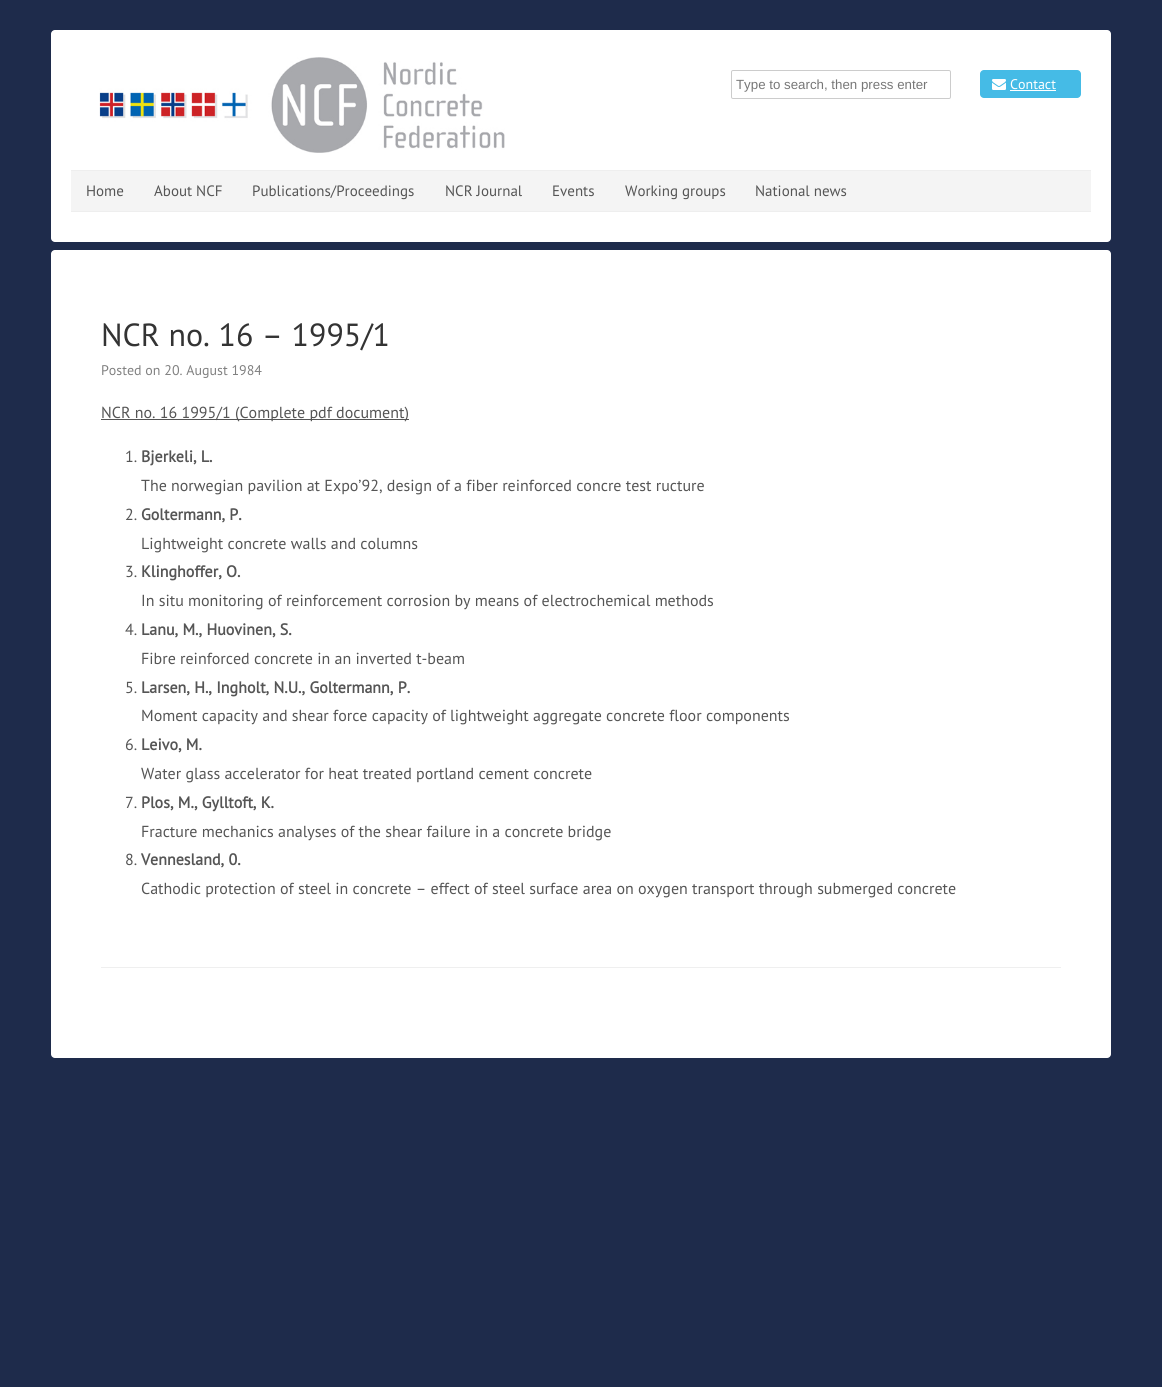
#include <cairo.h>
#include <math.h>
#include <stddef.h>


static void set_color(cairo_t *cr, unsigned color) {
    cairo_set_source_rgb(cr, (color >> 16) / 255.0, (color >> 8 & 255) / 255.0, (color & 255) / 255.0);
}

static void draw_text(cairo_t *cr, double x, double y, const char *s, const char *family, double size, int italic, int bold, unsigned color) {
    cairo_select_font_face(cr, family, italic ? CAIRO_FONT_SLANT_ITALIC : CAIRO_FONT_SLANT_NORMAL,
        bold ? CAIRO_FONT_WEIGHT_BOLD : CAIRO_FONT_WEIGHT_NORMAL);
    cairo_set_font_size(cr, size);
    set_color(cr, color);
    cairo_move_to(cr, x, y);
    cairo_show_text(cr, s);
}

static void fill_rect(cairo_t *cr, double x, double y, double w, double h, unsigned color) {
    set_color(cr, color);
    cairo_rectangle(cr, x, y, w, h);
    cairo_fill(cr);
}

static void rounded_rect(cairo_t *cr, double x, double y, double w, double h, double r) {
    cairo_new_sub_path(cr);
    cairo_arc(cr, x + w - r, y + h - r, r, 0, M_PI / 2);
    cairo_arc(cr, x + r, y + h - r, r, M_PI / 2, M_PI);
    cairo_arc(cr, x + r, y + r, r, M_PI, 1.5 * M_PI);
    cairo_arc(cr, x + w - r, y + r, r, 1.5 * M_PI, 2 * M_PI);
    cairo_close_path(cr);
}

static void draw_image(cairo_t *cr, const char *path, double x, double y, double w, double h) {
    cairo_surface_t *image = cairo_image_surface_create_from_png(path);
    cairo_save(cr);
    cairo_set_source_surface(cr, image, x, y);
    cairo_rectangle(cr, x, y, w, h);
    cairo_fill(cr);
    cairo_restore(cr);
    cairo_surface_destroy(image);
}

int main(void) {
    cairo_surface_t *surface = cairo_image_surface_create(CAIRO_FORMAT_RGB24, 1162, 1387);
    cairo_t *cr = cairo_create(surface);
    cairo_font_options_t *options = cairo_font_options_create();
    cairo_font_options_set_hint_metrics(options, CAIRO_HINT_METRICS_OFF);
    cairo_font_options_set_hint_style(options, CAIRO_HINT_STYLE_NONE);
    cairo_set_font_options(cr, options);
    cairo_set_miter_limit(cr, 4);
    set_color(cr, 0x1E2B4B);
    cairo_paint(cr);
    set_color(cr, 0xFFFFFF);
    rounded_rect(cr, 51, 30, 1060, 212, 4);
    cairo_fill(cr);
    draw_image(cr, "assets/img1.png", 99, 57, 406, 96);
    rounded_rect(cr, 731.5, 70.5, 219, 28, 1.5);
    set_color(cr, 0xCCCCCC);
    cairo_set_line_width(cr, 1);
    cairo_stroke(cr);
    draw_text(cr, 736, 89, "Type to search, then press enter", "Liberation Sans", 13.3, 0, 0, 0x777777);
    set_color(cr, 0x45BBE6);
    rounded_rect(cr, 980, 70, 101, 28, 4);
    cairo_fill(cr);
    draw_image(cr, "assets/img2.png", 992, 79, 14, 11);
    draw_text(cr, 1010, 89, "Contact", "PT Sans", 14, 0, 0, 0xFFFFFF);
    fill_rect(cr, 1010, 90, 46, 1, 0xFFFFFF);
    fill_rect(cr, 71, 171, 1020, 40, 0xF4F4F4);
    fill_rect(cr, 71, 170, 1020, 1, 0xEEEEEE);
    fill_rect(cr, 71, 211, 1020, 1, 0xEEEEEE);
    draw_text(cr, 86, 196, "Home", "PT Sans", 15, 0, 0, 0x555555);
    draw_text(cr, 154, 196, "About NCF", "PT Sans", 15, 0, 0, 0x555555);
    draw_text(cr, 252, 196, "Publications/Proceedings", "PT Sans", 15, 0, 0, 0x555555);
    draw_text(cr, 445, 196, "NCR Journal", "PT Sans", 15, 0, 0, 0x555555);
    draw_text(cr, 552, 196, "Events", "PT Sans", 15, 0, 0, 0x555555);
    draw_text(cr, 625, 196, "Working groups", "PT Sans", 15, 0, 0, 0x555555);
    draw_text(cr, 755, 196, "National news", "PT Sans", 15, 0, 0, 0x555555);
    set_color(cr, 0xFFFFFF);
    rounded_rect(cr, 51, 250, 1060, 808, 4);
    cairo_fill(cr);
    fill_rect(cr, 101, 967, 960, 1, 0xEFEFEF);
    draw_text(cr, 101, 346, "NCR no. 16 – 1995/1", "PT Sans", 32, 0, 0, 0x333333);
    draw_text(cr, 101, 375, "Posted on 20. August 1984", "PT Sans", 14, 0, 0, 0x818181);
    fill_rect(cr, 101, 419, 308, 1, 0x555555);
    draw_text(cr, 101, 418, "NCR no. 16 1995/1 (Complete pdf document)", "PT Sans", 16, 0, 0, 0x555555);
    draw_text(cr, 125, 462, "1.", "PT Sans", 16, 0, 0, 0x555555);
    draw_text(cr, 141, 462, "Bjerkeli, L.", "PT Sans", 16, 0, 1, 0x555555);
    draw_text(cr, 141, 491, "The norwegian pavilion at Expo’92, design of a fiber reinforced concre test ructure", "PT Sans", 16, 0, 0, 0x555555);
    draw_text(cr, 125, 520, "2.", "PT Sans", 16, 0, 0, 0x555555);
    draw_text(cr, 141, 520, "Goltermann, P.", "PT Sans", 16, 0, 1, 0x555555);
    draw_text(cr, 141, 549, "Lightweight concrete walls and columns", "PT Sans", 16, 0, 0, 0x555555);
    draw_text(cr, 125, 577, "3.", "PT Sans", 16, 0, 0, 0x555555);
    draw_text(cr, 141, 577, "Klinghoffer, O.", "PT Sans", 16, 0, 1, 0x555555);
    draw_text(cr, 141, 606, "In situ monitoring of reinforcement corrosion by means of electrochemical methods", "PT Sans", 16, 0, 0, 0x555555);
    draw_text(cr, 125, 635, "4.", "PT Sans", 16, 0, 0, 0x555555);
    draw_text(cr, 141, 635, "Lanu, M., Huovinen, S.", "PT Sans", 16, 0, 1, 0x555555);
    draw_text(cr, 141, 664, "Fibre reinforced concrete in an inverted t-beam", "PT Sans", 16, 0, 0, 0x555555);
    draw_text(cr, 125, 693, "5.", "PT Sans", 16, 0, 0, 0x555555);
    draw_text(cr, 141, 693, "Larsen, H., Ingholt, N.U., Goltermann, P.", "PT Sans", 16, 0, 1, 0x555555);
    draw_text(cr, 141, 721, "Moment capacity and shear force capacity of lightweight aggregate concrete floor components", "PT Sans", 16, 0, 0, 0x555555);
    draw_text(cr, 125, 750, "6.", "PT Sans", 16, 0, 0, 0x555555);
    draw_text(cr, 141, 750, "Leivo, M.", "PT Sans", 16, 0, 1, 0x555555);
    draw_text(cr, 141, 779, "Water glass accelerator for heat treated portland cement concrete", "PT Sans", 16, 0, 0, 0x555555);
    draw_text(cr, 125, 808, "7.", "PT Sans", 16, 0, 0, 0x555555);
    draw_text(cr, 141, 808, "Plos, M., Gylltoft, K.", "PT Sans", 16, 0, 1, 0x555555);
    draw_text(cr, 141, 837, "Fracture mechanics analyses of the shear failure in a concrete bridge", "PT Sans", 16, 0, 0, 0x555555);
    draw_text(cr, 125, 865, "8.", "PT Sans", 16, 0, 0, 0x555555);
    draw_text(cr, 141, 865, "Vennesland, 0.", "PT Sans", 16, 0, 1, 0x555555);
    draw_text(cr, 141, 894, "Cathodic protection of steel in concrete – effect of steel surface area on oxygen transport through submerged concrete", "PT Sans", 16, 0, 0, 0x555555);
    cairo_surface_write_to_png(surface, "output.png");
    cairo_font_options_destroy(options);
    cairo_destroy(cr);
    cairo_surface_destroy(surface);
    return 0;
}
